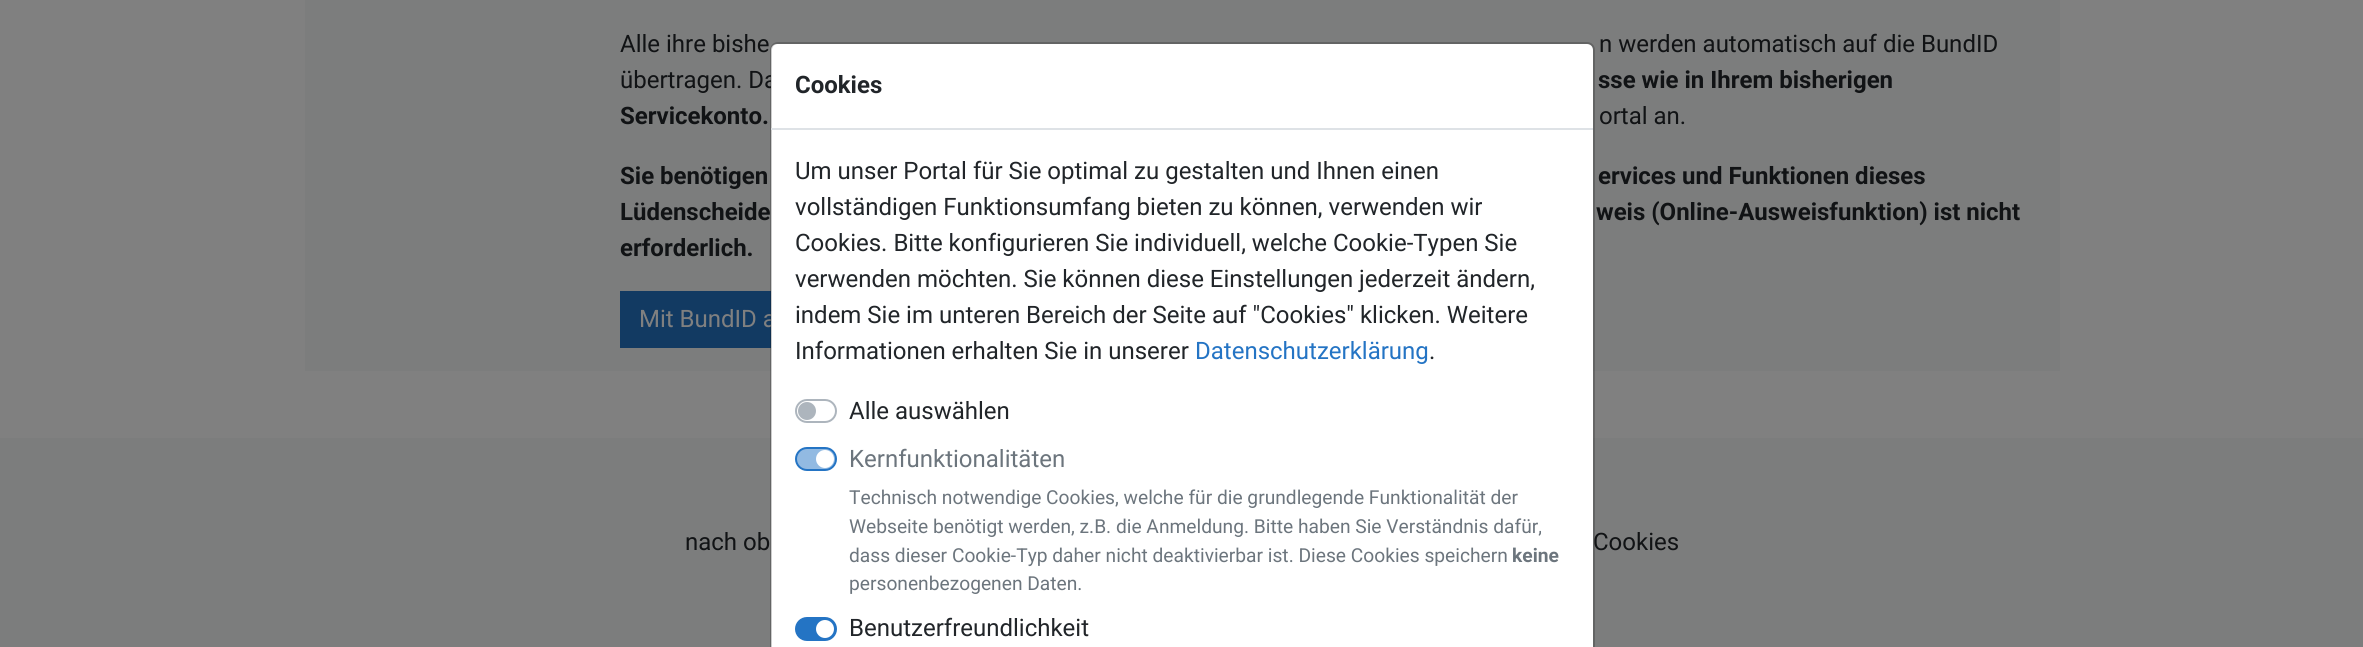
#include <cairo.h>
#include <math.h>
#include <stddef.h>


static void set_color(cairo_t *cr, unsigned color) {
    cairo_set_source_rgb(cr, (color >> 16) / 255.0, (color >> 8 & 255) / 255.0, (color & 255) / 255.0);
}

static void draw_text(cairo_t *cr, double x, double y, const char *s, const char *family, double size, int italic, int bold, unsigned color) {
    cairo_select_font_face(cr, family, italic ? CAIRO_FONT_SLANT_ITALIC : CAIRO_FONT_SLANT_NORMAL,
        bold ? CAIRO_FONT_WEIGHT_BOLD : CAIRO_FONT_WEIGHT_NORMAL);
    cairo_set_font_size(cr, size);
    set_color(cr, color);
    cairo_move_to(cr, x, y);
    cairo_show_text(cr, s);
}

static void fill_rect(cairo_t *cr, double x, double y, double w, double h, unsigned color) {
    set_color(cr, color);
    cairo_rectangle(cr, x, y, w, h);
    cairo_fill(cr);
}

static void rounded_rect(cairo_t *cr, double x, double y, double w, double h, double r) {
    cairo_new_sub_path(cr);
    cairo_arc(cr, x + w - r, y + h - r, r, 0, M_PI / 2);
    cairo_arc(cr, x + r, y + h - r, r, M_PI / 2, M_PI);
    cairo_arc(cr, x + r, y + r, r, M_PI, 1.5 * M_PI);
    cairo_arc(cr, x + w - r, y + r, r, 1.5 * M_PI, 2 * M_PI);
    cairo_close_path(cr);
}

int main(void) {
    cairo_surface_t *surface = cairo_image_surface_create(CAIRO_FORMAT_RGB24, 2363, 647);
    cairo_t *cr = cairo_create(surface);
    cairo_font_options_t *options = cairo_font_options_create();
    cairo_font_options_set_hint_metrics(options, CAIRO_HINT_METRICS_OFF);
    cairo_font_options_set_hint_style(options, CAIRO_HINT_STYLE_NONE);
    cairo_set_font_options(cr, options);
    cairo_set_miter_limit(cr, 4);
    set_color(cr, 0x808080);
    cairo_paint(cr);
    fill_rect(cr, 305, 0, 1755, 371, 0x7C7D7D);
    draw_text(cr, 620, 52, "Alle ihre bishe", "Roboto", 24, 0, 0, 0x111315);
    draw_text(cr, 1599, 52, "n werden automatisch auf die BundID", "Roboto", 24, 0, 0, 0x111315);
    draw_text(cr, 620, 88, "übertragen. Da", "Roboto", 24, 0, 0, 0x111315);
    draw_text(cr, 1598, 88, "sse wie in Ihrem bisherigen", "Roboto", 24, 0, 1, 0x111315);
    draw_text(cr, 620, 124, "Servicekonto.", "Roboto", 24, 0, 1, 0x111315);
    draw_text(cr, 1599, 124, "ortal an.", "Roboto", 24, 0, 0, 0x111315);
    draw_text(cr, 620, 184, "Sie benötigen", "Roboto", 24, 0, 1, 0x111315);
    draw_text(cr, 1598, 184, "ervices und Funktionen dieses", "Roboto", 24, 0, 1, 0x111315);
    draw_text(cr, 620, 220, "Lüdenscheide", "Roboto", 24, 0, 1, 0x111315);
    draw_text(cr, 1596, 220, "weis (Online-Ausweisfunktion) ist nicht", "Roboto", 24, 0, 1, 0x111315);
    draw_text(cr, 620, 256, "erforderlich.", "Roboto", 24, 0, 1, 0x111315);
    fill_rect(cr, 620, 291, 151, 57, 0x123A62);
    draw_text(cr, 639, 327, "Mit BundID a", "Roboto", 24, 0, 0, 0x808080);
    fill_rect(cr, 0, 438, 2363, 209, 0x7C7D7D);
    draw_text(cr, 685, 550, "nach ob", "Roboto", 24, 0, 0, 0x111315);
    draw_text(cr, 1593, 550, "Cookies", "Roboto", 24, 0, 0, 0x111315);
    set_color(cr, 0xFFFFFF);
    cairo_new_path(cr);
    cairo_move_to(cr, 777, 44);
    cairo_line_to(cr, 1587, 44);
    cairo_curve_to(cr, 1590.5, 44, 1593, 46.5, 1593, 50);
    cairo_line_to(cr, 1593, 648);
    cairo_line_to(cr, 771, 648);
    cairo_line_to(cr, 771, 50);
    cairo_curve_to(cr, 771, 46.5, 773.5, 44, 777, 44);
    cairo_close_path(cr);
    cairo_fill(cr);
    rounded_rect(cr, 771, 43, 823, 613, 7);
    cairo_set_source_rgba(cr, 0, 0, 0, 0.2);
    cairo_stroke(cr);
    fill_rect(cr, 771, 128, 822, 2, 0xDEE2E6);
    draw_text(cr, 795, 93, "Cookies", "Roboto", 24, 0, 1, 0x212529);
    draw_text(cr, 795, 179, "Um unser Portal für Sie optimal zu gestalten und Ihnen einen", "Roboto", 24, 0, 0, 0x212529);
    draw_text(cr, 795, 215, "vollständigen Funktionsumfang bieten zu können, verwenden wir", "Roboto", 24, 0, 0, 0x212529);
    draw_text(cr, 795, 251, "Cookies. Bitte konfigurieren Sie individuell, welche Cookie-Typen Sie", "Roboto", 24, 0, 0, 0x212529);
    draw_text(cr, 795, 287, "verwenden möchten. Sie können diese Einstellungen jederzeit ändern,", "Roboto", 24, 0, 0, 0x212529);
    draw_text(cr, 795, 323, "indem Sie im unteren Bereich der Seite auf \"Cookies\" klicken. Weitere", "Roboto", 24, 0, 0, 0x212529);
    draw_text(cr, 795, 359, "Informationen erhalten Sie in unserer", "Roboto", 24, 0, 0, 0x212529);
    draw_text(cr, 1195, 359, "Datenschutzerklärung", "Roboto", 24, 0, 0, 0x2474C4);
    draw_text(cr, 1429, 359, ".", "Roboto", 24, 0, 0, 0x212529);
    rounded_rect(cr, 796, 400, 40, 22, 11);
    set_color(cr, 0xADB5BD);
    cairo_stroke(cr);
    draw_text(cr, 849, 419, "Alle auswählen", "Roboto", 24, 0, 0, 0x212529);
    set_color(cr, 0xADB5BD);
    cairo_new_path(cr);
    cairo_arc(cr, 807, 411, 9, 0, 2 * M_PI);
    cairo_fill(cr);
    set_color(cr, 0x92BAE2);
    rounded_rect(cr, 796, 448, 40, 22, 11);
    cairo_fill_preserve(cr);
    set_color(cr, 0x2474C4);
    cairo_stroke(cr);
    draw_text(cr, 849, 467, "Kernfunktionalitäten", "Roboto", 24, 0, 0, 0x6C757D);
    set_color(cr, 0xFFFFFF);
    cairo_new_path(cr);
    cairo_arc(cr, 825, 459, 9, 0, 2 * M_PI);
    cairo_fill(cr);
    draw_text(cr, 849, 504, "Technisch notwendige Cookies, welche für die grundlegende Funktionalität der", "Roboto", 19.2, 0, 0, 0x6C757D);
    draw_text(cr, 849, 533, "Webseite benötigt werden, z.B. die Anmeldung. Bitte haben Sie Verständnis dafür,", "Roboto", 19.2, 0, 0, 0x6C757D);
    draw_text(cr, 849, 562, "dass dieser Cookie-Typ daher nicht deaktivierbar ist. Diese Cookies speichern", "Roboto", 19.2, 0, 0, 0x6C757D);
    draw_text(cr, 1512, 562, "keine", "Roboto", 19.2, 0, 1, 0x6C757D);
    draw_text(cr, 849, 590, "personenbezogenen Daten.", "Roboto", 19.2, 0, 0, 0x6C757D);
    set_color(cr, 0x2474C4);
    rounded_rect(cr, 796, 618, 40, 22, 11);
    cairo_fill_preserve(cr);
    cairo_stroke(cr);
    draw_text(cr, 849, 636, "Benutzerfreundlichkeit", "Roboto", 24, 0, 0, 0x212529);
    set_color(cr, 0xFFFFFF);
    cairo_new_path(cr);
    cairo_arc(cr, 825, 629, 9, 0, 2 * M_PI);
    cairo_fill(cr);
    cairo_surface_write_to_png(surface, "output.png");
    cairo_font_options_destroy(options);
    cairo_destroy(cr);
    cairo_surface_destroy(surface);
    return 0;
}
